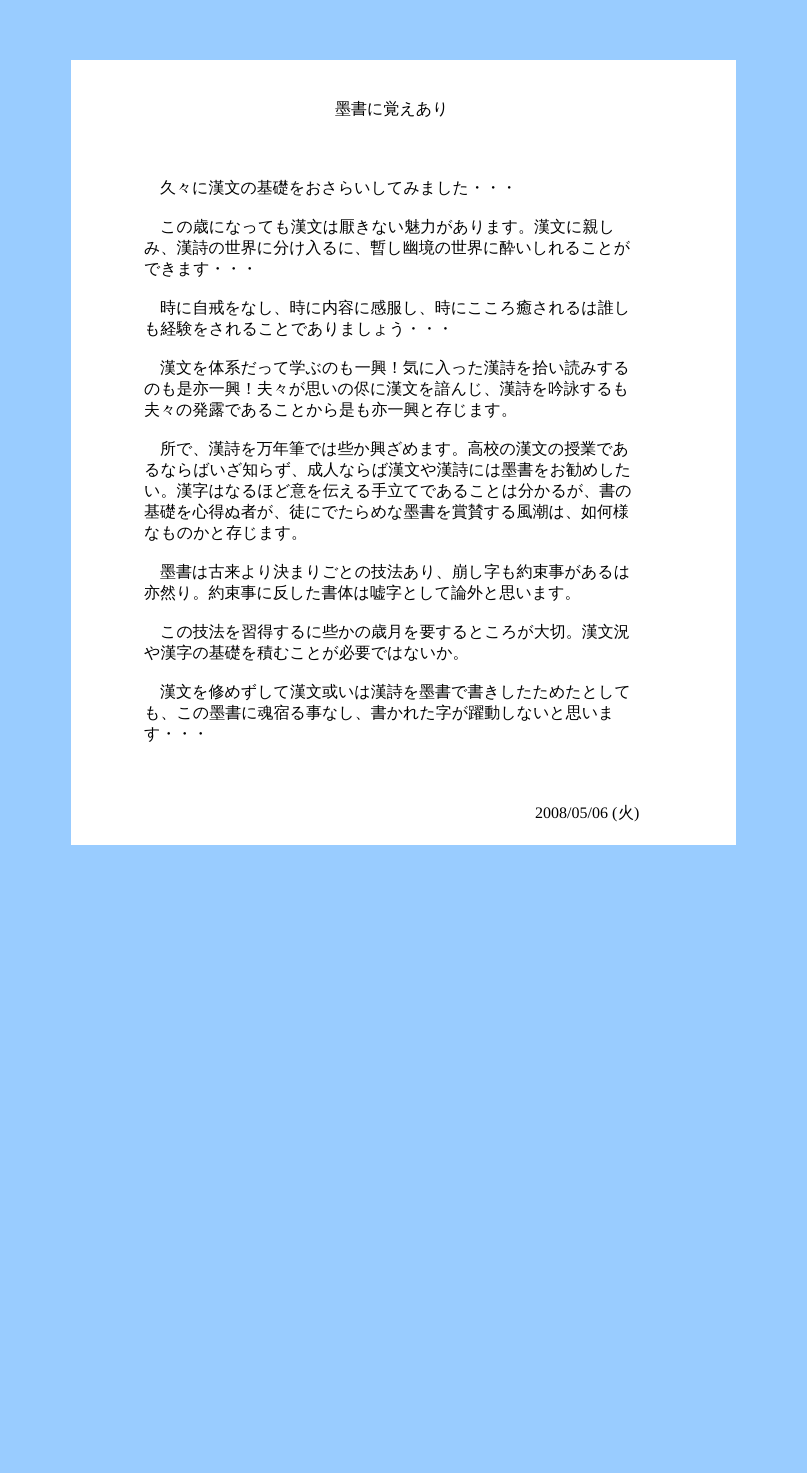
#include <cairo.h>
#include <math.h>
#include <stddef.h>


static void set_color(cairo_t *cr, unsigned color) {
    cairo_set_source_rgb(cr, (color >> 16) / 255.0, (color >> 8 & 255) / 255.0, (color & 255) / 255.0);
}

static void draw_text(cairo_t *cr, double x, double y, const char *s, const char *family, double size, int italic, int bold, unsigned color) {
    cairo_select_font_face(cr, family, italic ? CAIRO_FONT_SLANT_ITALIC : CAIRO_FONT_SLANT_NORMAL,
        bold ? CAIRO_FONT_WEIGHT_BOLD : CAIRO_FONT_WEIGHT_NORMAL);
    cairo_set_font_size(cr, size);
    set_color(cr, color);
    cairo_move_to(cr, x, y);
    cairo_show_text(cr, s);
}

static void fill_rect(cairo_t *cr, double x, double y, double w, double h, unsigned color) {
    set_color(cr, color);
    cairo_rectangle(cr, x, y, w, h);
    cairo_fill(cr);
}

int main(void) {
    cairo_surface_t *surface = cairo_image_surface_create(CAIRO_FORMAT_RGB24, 807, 1473);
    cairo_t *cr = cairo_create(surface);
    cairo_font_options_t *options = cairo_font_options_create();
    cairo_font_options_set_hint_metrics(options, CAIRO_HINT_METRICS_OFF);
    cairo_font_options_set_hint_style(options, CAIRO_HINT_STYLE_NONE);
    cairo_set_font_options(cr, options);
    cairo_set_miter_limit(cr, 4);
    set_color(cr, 0x99CCFF);
    cairo_paint(cr);
    fill_rect(cr, 71, 60, 665, 785, 0xFFFFFF);
    draw_text(cr, 335, 114, "墨書に覚えあり", "WenQuanYi Zen Hei Medium", 16, 0, 0, 0x000000);
    draw_text(cr, 160, 193, "久々に漢文の基礎をおさらいしてみました・・・", "WenQuanYi Zen Hei Medium", 16, 0, 0, 0x000000);
    draw_text(cr, 160, 232, "この歳になっても漢文は厭きない魅力があります。漢文に親し", "WenQuanYi Zen Hei Medium", 16, 0, 0, 0x000000);
    draw_text(cr, 144, 253, "み、漢詩の世界に分け入るに、暫し幽境の世界に酔いしれることが", "WenQuanYi Zen Hei Medium", 16, 0, 0, 0x000000);
    draw_text(cr, 144, 274, "できます・・・", "WenQuanYi Zen Hei Medium", 16, 0, 0, 0x000000);
    draw_text(cr, 160, 313, "時に自戒をなし、時に内容に感服し、時にこころ癒されるは誰し", "WenQuanYi Zen Hei Medium", 16, 0, 0, 0x000000);
    draw_text(cr, 144, 334, "も経験をされることでありましょう・・・", "WenQuanYi Zen Hei Medium", 16, 0, 0, 0x000000);
    draw_text(cr, 160, 373, "漢文を体系だって学ぶのも一興！気に入った漢詩を拾い読みする", "WenQuanYi Zen Hei Medium", 16, 0, 0, 0x000000);
    draw_text(cr, 144, 394, "のも是亦一興！夫々が思いの侭に漢文を諳んじ、漢詩を吟詠するも", "WenQuanYi Zen Hei Medium", 16, 0, 0, 0x000000);
    draw_text(cr, 144, 415, "夫々の発露であることから是も亦一興と存じます。", "WenQuanYi Zen Hei Medium", 16, 0, 0, 0x000000);
    draw_text(cr, 160, 454, "所で、漢詩を万年筆では些か興ざめます。高校の漢文の授業であ", "WenQuanYi Zen Hei Medium", 16, 0, 0, 0x000000);
    draw_text(cr, 144, 475, "るならばいざ知らず、成人ならば漢文や漢詩には墨書をお勧めした", "WenQuanYi Zen Hei Medium", 16, 0, 0, 0x000000);
    draw_text(cr, 144, 496, "い。漢字はなるほど意を伝える手立てであることは分かるが、書の", "WenQuanYi Zen Hei Medium", 16, 0, 0, 0x000000);
    draw_text(cr, 144, 517, "基礎を心得ぬ者が、徒にでたらめな墨書を賞賛する風潮は、如何様", "WenQuanYi Zen Hei Medium", 16, 0, 0, 0x000000);
    draw_text(cr, 144, 538, "なものかと存じます。", "WenQuanYi Zen Hei Medium", 16, 0, 0, 0x000000);
    draw_text(cr, 160, 577, "墨書は古来より決まりごとの技法あり、崩し字も約束事があるは", "WenQuanYi Zen Hei Medium", 16, 0, 0, 0x000000);
    draw_text(cr, 144, 598, "亦然り。約束事に反した書体は嘘字として論外と思います。", "WenQuanYi Zen Hei Medium", 16, 0, 0, 0x000000);
    draw_text(cr, 160, 637, "この技法を習得するに些かの歳月を要するところが大切。漢文況", "WenQuanYi Zen Hei Medium", 16, 0, 0, 0x000000);
    draw_text(cr, 144, 658, "や漢字の基礎を積むことが必要ではないか。", "WenQuanYi Zen Hei Medium", 16, 0, 0, 0x000000);
    draw_text(cr, 160, 697, "漢文を修めずして漢文或いは漢詩を墨書で書きしたためたとして", "WenQuanYi Zen Hei Medium", 16, 0, 0, 0x000000);
    draw_text(cr, 144, 718, "も、この墨書に魂宿る事なし、書かれた字が躍動しないと思いま", "WenQuanYi Zen Hei Medium", 16, 0, 0, 0x000000);
    draw_text(cr, 144, 739, "す・・・", "WenQuanYi Zen Hei Medium", 16, 0, 0, 0x000000);
    draw_text(cr, 535, 818, "2008/05/06 (", "Liberation Serif", 16, 0, 0, 0x000000);
    draw_text(cr, 618, 818, "火", "WenQuanYi Zen Hei Medium", 16, 0, 0, 0x000000);
    draw_text(cr, 634, 818, ")", "Liberation Serif", 16, 0, 0, 0x000000);
    cairo_surface_write_to_png(surface, "output.png");
    cairo_font_options_destroy(options);
    cairo_destroy(cr);
    cairo_surface_destroy(surface);
    return 0;
}
